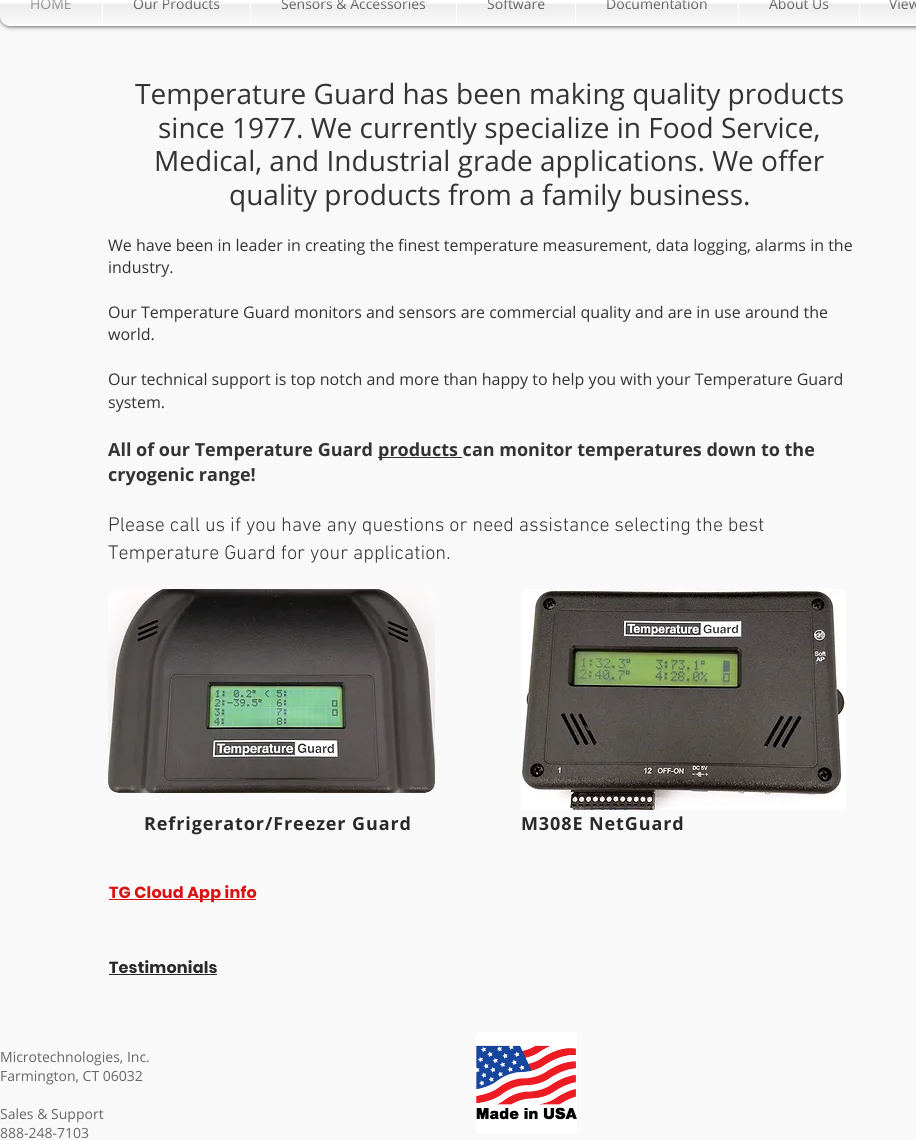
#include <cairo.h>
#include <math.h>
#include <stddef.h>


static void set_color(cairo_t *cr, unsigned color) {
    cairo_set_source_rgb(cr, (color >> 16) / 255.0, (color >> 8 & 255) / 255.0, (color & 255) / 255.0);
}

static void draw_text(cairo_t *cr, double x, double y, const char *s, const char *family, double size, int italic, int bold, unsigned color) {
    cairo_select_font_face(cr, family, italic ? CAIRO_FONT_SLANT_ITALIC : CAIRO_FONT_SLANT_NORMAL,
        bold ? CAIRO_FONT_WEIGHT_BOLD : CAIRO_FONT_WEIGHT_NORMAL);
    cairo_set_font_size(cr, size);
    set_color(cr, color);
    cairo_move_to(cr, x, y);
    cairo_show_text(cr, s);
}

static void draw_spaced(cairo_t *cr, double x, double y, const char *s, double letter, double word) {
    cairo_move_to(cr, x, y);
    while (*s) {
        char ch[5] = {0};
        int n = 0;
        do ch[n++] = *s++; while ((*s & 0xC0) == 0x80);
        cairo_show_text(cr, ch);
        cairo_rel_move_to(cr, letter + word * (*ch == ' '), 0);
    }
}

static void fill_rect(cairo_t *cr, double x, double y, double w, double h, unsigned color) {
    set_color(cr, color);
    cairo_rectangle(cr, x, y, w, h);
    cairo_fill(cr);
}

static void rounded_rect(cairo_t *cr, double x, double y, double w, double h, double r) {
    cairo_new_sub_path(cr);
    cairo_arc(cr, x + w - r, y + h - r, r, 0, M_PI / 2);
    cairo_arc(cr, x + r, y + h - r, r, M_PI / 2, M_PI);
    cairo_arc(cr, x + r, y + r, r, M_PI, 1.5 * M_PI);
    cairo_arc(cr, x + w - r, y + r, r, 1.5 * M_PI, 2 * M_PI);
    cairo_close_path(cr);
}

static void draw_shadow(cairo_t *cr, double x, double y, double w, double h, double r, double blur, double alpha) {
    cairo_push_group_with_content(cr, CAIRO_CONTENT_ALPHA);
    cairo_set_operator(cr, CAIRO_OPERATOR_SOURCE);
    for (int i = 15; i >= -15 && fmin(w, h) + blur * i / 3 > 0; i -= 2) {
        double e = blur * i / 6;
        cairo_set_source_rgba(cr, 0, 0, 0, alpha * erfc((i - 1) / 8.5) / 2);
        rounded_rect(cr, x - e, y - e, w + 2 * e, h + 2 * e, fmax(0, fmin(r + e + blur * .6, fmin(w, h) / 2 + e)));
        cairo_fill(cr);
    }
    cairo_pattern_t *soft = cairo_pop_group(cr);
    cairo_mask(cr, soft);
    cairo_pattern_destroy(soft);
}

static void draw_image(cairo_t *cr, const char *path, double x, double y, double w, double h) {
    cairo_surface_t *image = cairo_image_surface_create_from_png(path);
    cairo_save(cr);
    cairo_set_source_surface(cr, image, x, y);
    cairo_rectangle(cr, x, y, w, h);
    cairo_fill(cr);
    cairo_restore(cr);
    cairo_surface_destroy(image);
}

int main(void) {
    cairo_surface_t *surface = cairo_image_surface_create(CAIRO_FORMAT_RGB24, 916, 1140);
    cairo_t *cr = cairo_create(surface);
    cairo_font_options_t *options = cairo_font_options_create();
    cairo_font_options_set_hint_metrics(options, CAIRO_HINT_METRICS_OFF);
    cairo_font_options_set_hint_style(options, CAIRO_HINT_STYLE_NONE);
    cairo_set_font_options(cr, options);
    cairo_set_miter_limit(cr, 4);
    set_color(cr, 0xF9F9F9);
    cairo_paint(cr);
    set_color(cr, 0x000000);
    draw_shadow(cr, 0, -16, 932, 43, 10, 2, 0.6);
    draw_image(cr, "assets/img1.png", 0, 16, 2, 5);
    set_color(cr, 0xFFFFFF);
    cairo_new_path(cr);
    cairo_move_to(cr, 10, -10);
    cairo_line_to(cr, 102, -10);
    cairo_line_to(cr, 102, 26);
    cairo_line_to(cr, 10, 26);
    cairo_curve_to(cr, 4.5, 26, 0, 21.5, 0, 16);
    cairo_line_to(cr, 0, 0);
    cairo_curve_to(cr, 0, -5.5, 4.5, -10, 10, -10);
    cairo_close_path(cr);
    cairo_fill(cr);
    draw_text(cr, 30, 9, "HOME", "Open Sans", 14, 0, 0, 0x999999);
    draw_image(cr, "assets/img2.png", 0, 0, 102, 24);
    fill_rect(cr, 102, 0, 814, 26, 0xFFFFFF);
    draw_text(cr, 133, 9, "Our Products", "Open Sans", 14, 0, 0, 0x666666);
    draw_image(cr, "assets/img3.png", 103, 0, 147, 24);
    draw_text(cr, 281, 9, "Sensors & Accessories", "Open Sans", 14, 0, 0, 0x666666);
    draw_image(cr, "assets/img4.png", 251, 0, 205, 24);
    draw_text(cr, 487, 9, "Software", "Open Sans", 14, 0, 0, 0x666666);
    draw_image(cr, "assets/img5.png", 457, 0, 118, 24);
    draw_text(cr, 606, 9, "Documentation", "Open Sans", 14, 0, 0, 0x666666);
    draw_image(cr, "assets/img6.png", 576, 0, 162, 24);
    draw_text(cr, 769, 9, "About Us", "Open Sans", 14, 0, 0, 0x666666);
    draw_image(cr, "assets/img7.png", 739, 0, 120, 24);
    draw_text(cr, 889, 9, "View", "Open Sans", 14, 0, 0, 0x666666);
    draw_image(cr, "assets/img8.png", 860, 0, 56, 24);
    draw_text(cr, 135, 104, "Temperature Guard has been making quality products", "Open Sans", 28, 0, 0, 0x333333);
    draw_text(cr, 158, 138, "since 1977. We currently specialize in Food Service,", "Open Sans", 28, 0, 0, 0x333333);
    draw_text(cr, 154, 171, "Medical, and Industrial grade applications. We offer", "Open Sans", 28, 0, 0, 0x333333);
    draw_text(cr, 229, 205, "quality products from a family business.", "Open Sans", 28, 0, 0, 0x333333);
    draw_text(cr, 108, 251, "We have been in leader in creating the finest temperature measurement, data logging, alarms in the", "Open Sans", 16, 0, 0, 0x333333);
    draw_text(cr, 108, 273, "industry.", "Open Sans", 16, 0, 0, 0x333333);
    draw_text(cr, 108, 318, "Our Temperature Guard monitors and sensors are commercial quality and are in use around the", "Open Sans", 16, 0, 0, 0x333333);
    draw_text(cr, 108, 340, "world.", "Open Sans", 16, 0, 0, 0x333333);
    draw_text(cr, 108, 385, "Our technical support is top notch and more than happy to help you with your Temperature Guard", "Open Sans", 16, 0, 0, 0x333333);
    draw_text(cr, 108, 408, "system.", "Open Sans", 16, 0, 0, 0x333333);
    draw_text(cr, 108, 456, "All of our Temperature Guard", "Open Sans", 18, 0, 1, 0x333333);
    fill_rect(cr, 378, 457, 84, 1, 0x333333);
    draw_text(cr, 378, 456, "products can monitor temperatures down to the", "Open Sans", 18, 0, 1, 0x333333);
    draw_text(cr, 108, 481, "cryogenic range!", "Open Sans", 18, 0, 1, 0x333333);
    draw_text(cr, 108, 531, "Please call us if you have any questions or need assistance selecting the best", "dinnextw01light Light", 20, 0, 0, 0x333333);
    draw_text(cr, 108, 559, "Temperature Guard for your application.", "dinnextw01light Light", 20, 0, 0, 0x333333);
    draw_image(cr, "assets/img9.png", 108, 589, 327, 204);
    draw_image(cr, "assets/img10.png", 521, 589, 325, 221);
    cairo_select_font_face(cr, "Open Sans", CAIRO_FONT_SLANT_NORMAL, CAIRO_FONT_WEIGHT_BOLD);
    cairo_set_font_size(cr, 18);
    set_color(cr, 0x292929);
    draw_spaced(cr, 144, 830, "Refrigerator/Freezer Guard", 0.9, 0);
    draw_spaced(cr, 521, 830, "M308E NetGuard", 0.9, 0);
    fill_rect(cr, 109, 899, 147, 1, 0xDA1212);
    cairo_select_font_face(cr, "Poppins", CAIRO_FONT_SLANT_NORMAL, CAIRO_FONT_WEIGHT_BOLD);
    cairo_set_font_size(cr, 16);
    draw_spaced(cr, 109, 898, "TG Cloud App info", 0.2, 0);
    set_color(cr, 0x292929);
    draw_spaced(cr, 109, 973, "Testimonials", 0.2, 0);
    fill_rect(cr, 109, 974, 108, 1, 0x292929);
    draw_text(cr, 0, 1062, "Microtechnologies, Inc.", "Open Sans", 14, 0, 0, 0x666666);
    draw_text(cr, 0, 1081, "Farmington, CT 06032", "Open Sans", 14, 0, 0, 0x666666);
    draw_text(cr, 0, 1119, "Sales & Support", "Open Sans", 14, 0, 0, 0x666666);
    draw_text(cr, 0, 1138, "888-248-7103", "Open Sans", 14, 0, 0, 0x666666);
    draw_image(cr, "assets/img11.png", 476, 1032, 101, 101);
    cairo_surface_write_to_png(surface, "output.png");
    cairo_font_options_destroy(options);
    cairo_destroy(cr);
    cairo_surface_destroy(surface);
    return 0;
}
